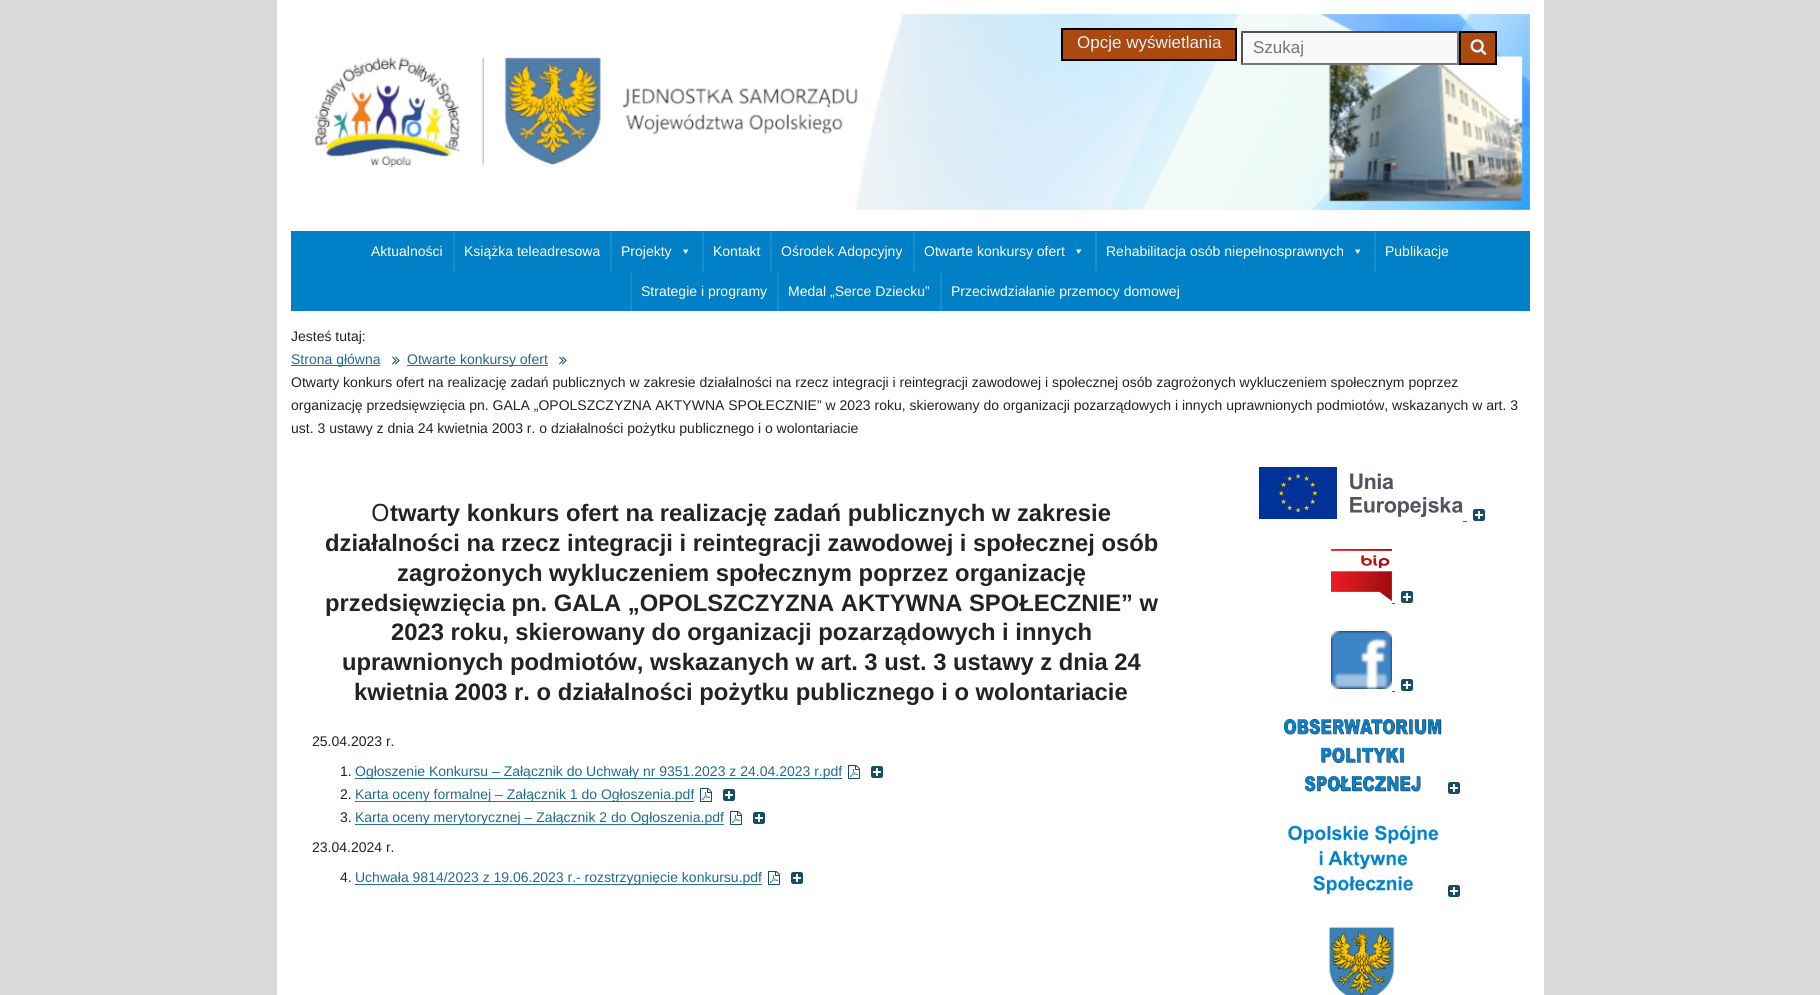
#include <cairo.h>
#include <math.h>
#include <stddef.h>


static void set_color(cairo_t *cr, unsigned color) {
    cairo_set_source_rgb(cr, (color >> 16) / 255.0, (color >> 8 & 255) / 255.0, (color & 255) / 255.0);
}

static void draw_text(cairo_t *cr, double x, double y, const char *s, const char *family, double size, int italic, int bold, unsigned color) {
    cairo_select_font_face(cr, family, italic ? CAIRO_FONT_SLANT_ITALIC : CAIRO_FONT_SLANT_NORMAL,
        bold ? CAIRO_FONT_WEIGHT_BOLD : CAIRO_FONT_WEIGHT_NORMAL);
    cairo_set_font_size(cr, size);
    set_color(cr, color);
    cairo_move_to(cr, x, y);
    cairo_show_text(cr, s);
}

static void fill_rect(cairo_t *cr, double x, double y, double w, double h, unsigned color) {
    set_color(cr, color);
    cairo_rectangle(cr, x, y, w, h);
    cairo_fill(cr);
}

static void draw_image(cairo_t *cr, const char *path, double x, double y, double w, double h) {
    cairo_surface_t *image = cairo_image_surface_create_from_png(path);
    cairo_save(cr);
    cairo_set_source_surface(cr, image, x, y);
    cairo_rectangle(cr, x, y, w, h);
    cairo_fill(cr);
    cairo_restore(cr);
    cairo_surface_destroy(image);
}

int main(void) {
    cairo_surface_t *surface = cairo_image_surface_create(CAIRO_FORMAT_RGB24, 1820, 995);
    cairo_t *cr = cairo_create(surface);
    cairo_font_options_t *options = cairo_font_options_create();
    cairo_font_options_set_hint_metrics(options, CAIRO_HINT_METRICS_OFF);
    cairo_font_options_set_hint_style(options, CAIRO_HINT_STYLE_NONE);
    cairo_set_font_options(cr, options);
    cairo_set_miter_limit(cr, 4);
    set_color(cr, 0xD9D9D9);
    cairo_paint(cr);
    fill_rect(cr, 277, 0, 1267, 995, 0xFFFFFF);
    draw_image(cr, "assets/img1.png", 312, 14, 1218, 196);
    set_color(cr, 0xAB490F);
    cairo_rectangle(cr, 1062, 29, 174, 31);
    cairo_fill_preserve(cr);
    set_color(cr, 0x000000);
    cairo_stroke(cr);
    draw_text(cr, 1077, 48, "Opcje wyświetlania", "Liberation Sans", 17, 0, 0, 0xDAF3FF);
    fill_rect(cr, 1241, 31, 218, 34, 0xF9F9F9);
    set_color(cr, 0x4F4F4F);
    cairo_new_path(cr);
    cairo_move_to(cr, 1241, 31);
    cairo_line_to(cr, 1459, 31);
    cairo_line_to(cr, 1457, 33);
    cairo_line_to(cr, 1243, 33);
    cairo_close_path(cr);
    cairo_fill(cr);
    set_color(cr, 0x767676);
    cairo_new_path(cr);
    cairo_move_to(cr, 1459, 31);
    cairo_line_to(cr, 1459, 65);
    cairo_line_to(cr, 1457, 63);
    cairo_line_to(cr, 1457, 33);
    cairo_close_path(cr);
    cairo_fill(cr);
    cairo_new_path(cr);
    cairo_move_to(cr, 1459, 65);
    cairo_line_to(cr, 1241, 65);
    cairo_line_to(cr, 1243, 63);
    cairo_line_to(cr, 1457, 63);
    cairo_close_path(cr);
    cairo_fill(cr);
    set_color(cr, 0x4F4F4F);
    cairo_new_path(cr);
    cairo_move_to(cr, 1241, 65);
    cairo_line_to(cr, 1241, 31);
    cairo_line_to(cr, 1243, 33);
    cairo_line_to(cr, 1243, 63);
    cairo_close_path(cr);
    cairo_fill(cr);
    draw_text(cr, 1253, 53, "Szukaj", "Liberation Sans", 17, 0, 0, 0x757575);
    set_color(cr, 0xAB490F);
    cairo_rectangle(cr, 1460, 32, 36, 32);
    cairo_fill_preserve(cr);
    set_color(cr, 0x000000);
    cairo_stroke(cr);
    draw_image(cr, "assets/img2.png", 1470, 39, 17, 16);
    fill_rect(cr, 291, 231, 1239, 80, 0x0080C6);
    draw_text(cr, 371, 256, "Aktualności", "Liberation Sans", 14, 0, 0, 0xFFFFFF);
    fill_rect(cr, 453, 231, 2, 40, 0x1A8DCC);
    draw_text(cr, 464, 256, "Książka teleadresowa", "Liberation Sans", 14, 0, 0, 0xFFFFFF);
    fill_rect(cr, 610, 231, 2, 40, 0x1A8DCC);
    draw_text(cr, 621, 256, "Projekty", "Liberation Sans", 14, 0, 0, 0xFFFFFF);
    cairo_new_path(cr);
    cairo_move_to(cr, 688.5, 249.5);
    cairo_line_to(cr, 685.5, 254);
    cairo_line_to(cr, 683, 249.5);
    cairo_close_path(cr);
    cairo_fill(cr);
    fill_rect(cr, 702, 231, 2, 40, 0x1A8DCC);
    draw_text(cr, 713, 256, "Kontakt", "Liberation Sans", 14, 0, 0, 0xFFFFFF);
    fill_rect(cr, 770, 231, 2, 40, 0x1A8DCC);
    draw_text(cr, 781, 256, "Ośrodek Adopcyjny", "Liberation Sans", 14, 0, 0, 0xFFFFFF);
    fill_rect(cr, 913, 231, 2, 40, 0x1A8DCC);
    draw_text(cr, 924, 256, "Otwarte konkursy ofert", "Liberation Sans", 14, 0, 0, 0xFFFFFF);
    cairo_new_path(cr);
    cairo_move_to(cr, 1081.5, 249.5);
    cairo_line_to(cr, 1078.5, 254);
    cairo_line_to(cr, 1076, 249.5);
    cairo_close_path(cr);
    cairo_fill(cr);
    fill_rect(cr, 1095, 231, 2, 40, 0x1A8DCC);
    draw_text(cr, 1106, 256, "Rehabilitacja osób niepełnosprawnych", "Liberation Sans", 14, 0, 0, 0xFFFFFF);
    cairo_new_path(cr);
    cairo_move_to(cr, 1360.5, 249.5);
    cairo_line_to(cr, 1357.5, 254);
    cairo_line_to(cr, 1355, 249.5);
    cairo_close_path(cr);
    cairo_fill(cr);
    fill_rect(cr, 1374, 231, 2, 40, 0x1A8DCC);
    draw_text(cr, 1385, 256, "Publikacje", "Liberation Sans", 14, 0, 0, 0xFFFFFF);
    fill_rect(cr, 630, 271, 2, 40, 0x1A8DCC);
    draw_text(cr, 641, 296, "Strategie i programy", "Liberation Sans", 14, 0, 0, 0xFFFFFF);
    fill_rect(cr, 777, 271, 2, 40, 0x1A8DCC);
    draw_text(cr, 788, 296, "Medal „Serce Dziecku”", "Liberation Sans", 14, 0, 0, 0xFFFFFF);
    fill_rect(cr, 940, 271, 2, 40, 0x1A8DCC);
    draw_text(cr, 951, 296, "Przeciwdziałanie przemocy domowej", "Liberation Sans", 14, 0, 0, 0xFFFFFF);
    draw_text(cr, 291, 341, "Jesteś tutaj:", "Liberation Sans", 14, 0, 0, 0x232323);
    fill_rect(cr, 291, 365, 89, 1, 0x257499);
    draw_text(cr, 291, 364, "Strona główna", "Liberation Sans", 14, 0, 0, 0x1F6C91);
    draw_image(cr, "assets/img3.png", 392, 356, 8, 9);
    fill_rect(cr, 407, 365, 141, 1, 0x257499);
    draw_text(cr, 407, 364, "Otwarte konkursy ofert", "Liberation Sans", 14, 0, 0, 0x1F6C91);
    draw_image(cr, "assets/img3.png", 559, 356, 8, 9);
    draw_text(cr, 291, 387, "Otwarty konkurs ofert na realizację zadań publicznych w zakresie działalności na rzecz integracji i reintegracji zawodowej i społecznej osób zagrożonych wykluczeniem społecznym poprzez", "Liberation Sans", 14, 0, 0, 0x232323);
    draw_text(cr, 291, 410, "organizację przedsięwzięcia pn. GALA „OPOLSZCZYZNA AKTYWNA SPOŁECZNIE” w 2023 roku, skierowany do organizacji pozarządowych i innych uprawnionych podmiotów, wskazanych w art. 3", "Liberation Sans", 14, 0, 0, 0x232323);
    draw_text(cr, 291, 433, "ust. 3 ustawy z dnia 24 kwietnia 2003 r. o działalności pożytku publicznego i o wolontariacie", "Liberation Sans", 14, 0, 0, 0x232323);
    draw_text(cr, 371, 521, "O", "Noto Sans", 23.8, 0, 0, 0x232323);
    draw_text(cr, 390, 521, "twarty konkurs ofert na realizację zadań publicznych w zakresie", "Liberation Sans", 23.8, 0, 1, 0x232323);
    draw_text(cr, 325, 551, "działalności na rzecz integracji i reintegracji zawodowej i społecznej osób", "Liberation Sans", 23.8, 0, 1, 0x232323);
    draw_text(cr, 397, 581, "zagrożonych wykluczeniem społecznym poprzez organizację", "Liberation Sans", 23.8, 0, 1, 0x232323);
    draw_text(cr, 325, 611, "przedsięwzięcia pn. GALA „OPOLSZCZYZNA AKTYWNA SPOŁECZNIE” w", "Liberation Sans", 23.8, 0, 1, 0x232323);
    draw_text(cr, 391, 640, "2023 roku, skierowany do organizacji pozarządowych i innych", "Liberation Sans", 23.8, 0, 1, 0x232323);
    draw_text(cr, 342, 670, "uprawnionych podmiotów, wskazanych w art. 3 ust. 3 ustawy z dnia 24", "Liberation Sans", 23.8, 0, 1, 0x232323);
    draw_text(cr, 354, 700, "kwietnia 2003 r. o działalności pożytku publicznego i o wolontariacie", "Liberation Sans", 23.8, 0, 1, 0x232323);
    draw_text(cr, 312, 746, "25.04.2023 r.", "Liberation Sans", 14, 0, 0, 0x232323);
    draw_text(cr, 340, 776, "1.", "Liberation Sans", 14, 0, 0, 0x232323);
    fill_rect(cr, 355, 778, 487, 1, 0x257499);
    draw_text(cr, 355, 776, "Ogłoszenie Konkursu – Załącznik do Uchwały nr 9351.2023 z 24.04.2023 r.pdf", "Liberation Sans", 14, 0, 0, 0x1F6C91);
    draw_image(cr, "assets/img4.png", 848, 765, 12, 14);
    draw_image(cr, "assets/img5.png", 871, 766, 12, 12);
    draw_text(cr, 340, 799, "2.", "Liberation Sans", 14, 0, 0, 0x232323);
    fill_rect(cr, 355, 801, 339, 1, 0x257499);
    draw_text(cr, 355, 799, "Karta oceny formalnej – Załącznik 1 do Ogłoszenia.pdf", "Liberation Sans", 14, 0, 0, 0x1F6C91);
    draw_image(cr, "assets/img4.png", 700, 788, 12, 14);
    draw_image(cr, "assets/img5.png", 723, 789, 12, 12);
    draw_text(cr, 340, 822, "3.", "Liberation Sans", 14, 0, 0, 0x232323);
    fill_rect(cr, 355, 824, 369, 1, 0x257499);
    draw_text(cr, 355, 822, "Karta oceny merytorycznej – Załącznik 2 do Ogłoszenia.pdf", "Liberation Sans", 14, 0, 0, 0x1F6C91);
    draw_image(cr, "assets/img4.png", 730, 811, 12, 14);
    draw_image(cr, "assets/img5.png", 753, 812, 12, 12);
    draw_text(cr, 312, 852, "23.04.2024 r.", "Liberation Sans", 14, 0, 0, 0x232323);
    draw_text(cr, 340, 882, "4.", "Liberation Sans", 14, 0, 0, 0x232323);
    fill_rect(cr, 355, 884, 407, 1, 0x257499);
    draw_text(cr, 355, 882, "Uchwała 9814/2023 z 19.06.2023 r.- rozstrzygnięcie konkursu.pdf", "Liberation Sans", 14, 0, 0, 0x1F6C91);
    draw_image(cr, "assets/img4.png", 768, 871, 12, 14);
    draw_image(cr, "assets/img5.png", 791, 872, 12, 12);
    draw_image(cr, "assets/img6.png", 1259, 467, 204, 52);
    draw_image(cr, "assets/img5.png", 1473, 509, 12, 12);
    fill_rect(cr, 1463, 521, 4, 1, 0x257499);
    draw_image(cr, "assets/img7.png", 1331, 549, 61, 52);
    draw_image(cr, "assets/img5.png", 1401, 591, 12, 12);
    fill_rect(cr, 1392, 603, 3, 1, 0x257499);
    draw_image(cr, "assets/img8.png", 1331, 631, 61, 58);
    draw_image(cr, "assets/img5.png", 1401, 679, 12, 12);
    fill_rect(cr, 1392, 691, 3, 1, 0x257499);
    draw_image(cr, "assets/img9.png", 1284, 719, 158, 73);
    draw_image(cr, "assets/img5.png", 1448, 782, 12, 12);
    draw_image(cr, "assets/img10.png", 1288, 825, 151, 70);
    draw_image(cr, "assets/img5.png", 1448, 885, 12, 12);
    draw_image(cr, "assets/img11.png", 1328, 927, 67, 68);
    cairo_surface_write_to_png(surface, "output.png");
    cairo_font_options_destroy(options);
    cairo_destroy(cr);
    cairo_surface_destroy(surface);
    return 0;
}
